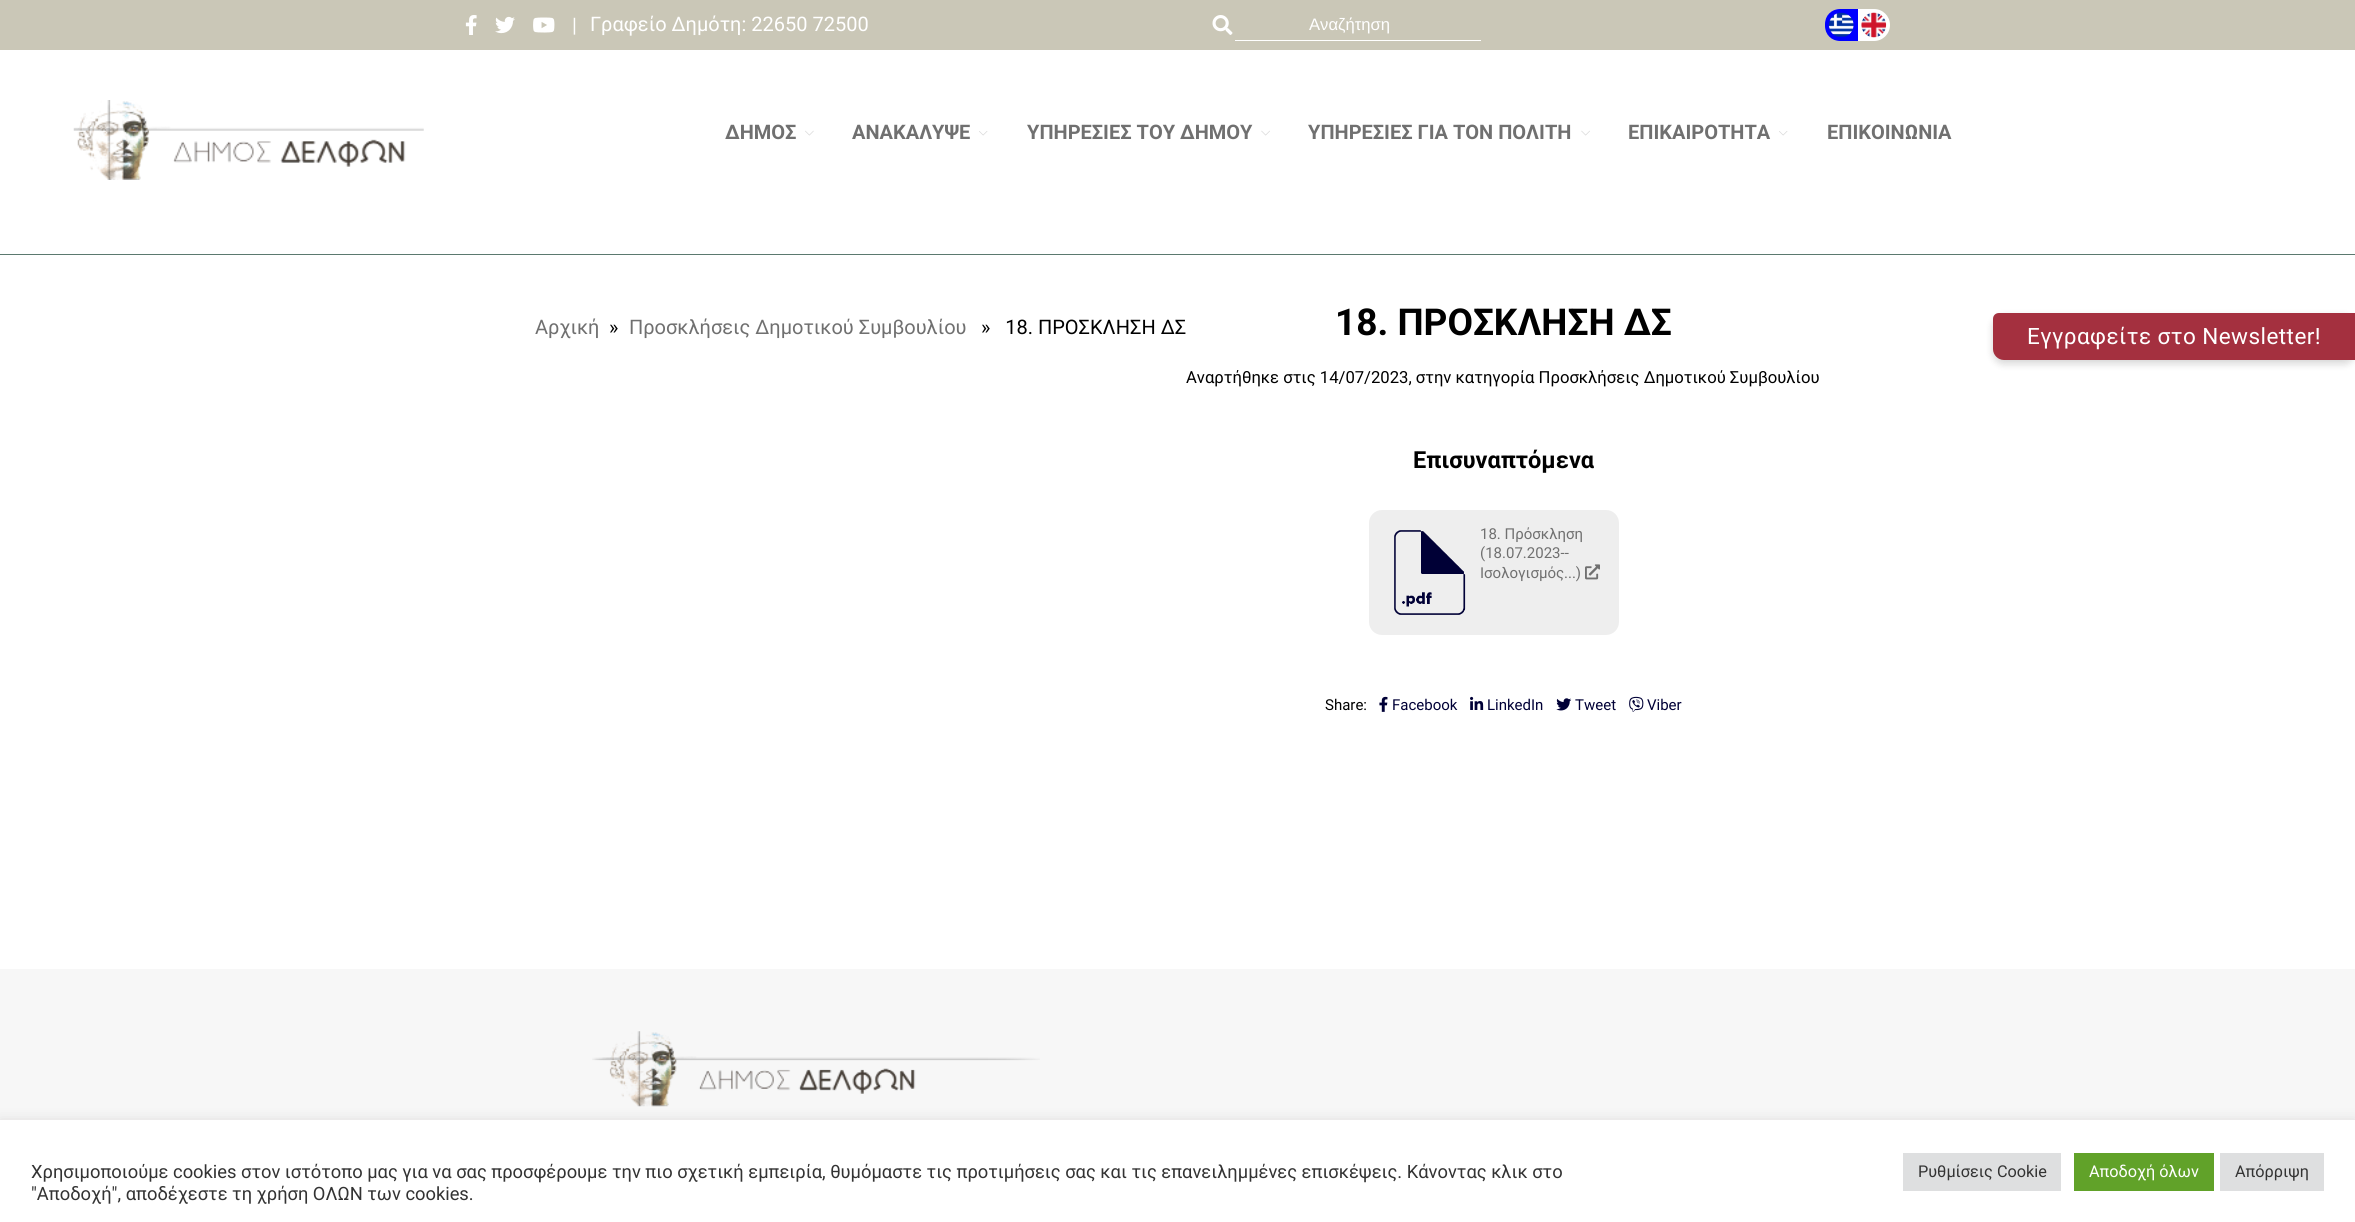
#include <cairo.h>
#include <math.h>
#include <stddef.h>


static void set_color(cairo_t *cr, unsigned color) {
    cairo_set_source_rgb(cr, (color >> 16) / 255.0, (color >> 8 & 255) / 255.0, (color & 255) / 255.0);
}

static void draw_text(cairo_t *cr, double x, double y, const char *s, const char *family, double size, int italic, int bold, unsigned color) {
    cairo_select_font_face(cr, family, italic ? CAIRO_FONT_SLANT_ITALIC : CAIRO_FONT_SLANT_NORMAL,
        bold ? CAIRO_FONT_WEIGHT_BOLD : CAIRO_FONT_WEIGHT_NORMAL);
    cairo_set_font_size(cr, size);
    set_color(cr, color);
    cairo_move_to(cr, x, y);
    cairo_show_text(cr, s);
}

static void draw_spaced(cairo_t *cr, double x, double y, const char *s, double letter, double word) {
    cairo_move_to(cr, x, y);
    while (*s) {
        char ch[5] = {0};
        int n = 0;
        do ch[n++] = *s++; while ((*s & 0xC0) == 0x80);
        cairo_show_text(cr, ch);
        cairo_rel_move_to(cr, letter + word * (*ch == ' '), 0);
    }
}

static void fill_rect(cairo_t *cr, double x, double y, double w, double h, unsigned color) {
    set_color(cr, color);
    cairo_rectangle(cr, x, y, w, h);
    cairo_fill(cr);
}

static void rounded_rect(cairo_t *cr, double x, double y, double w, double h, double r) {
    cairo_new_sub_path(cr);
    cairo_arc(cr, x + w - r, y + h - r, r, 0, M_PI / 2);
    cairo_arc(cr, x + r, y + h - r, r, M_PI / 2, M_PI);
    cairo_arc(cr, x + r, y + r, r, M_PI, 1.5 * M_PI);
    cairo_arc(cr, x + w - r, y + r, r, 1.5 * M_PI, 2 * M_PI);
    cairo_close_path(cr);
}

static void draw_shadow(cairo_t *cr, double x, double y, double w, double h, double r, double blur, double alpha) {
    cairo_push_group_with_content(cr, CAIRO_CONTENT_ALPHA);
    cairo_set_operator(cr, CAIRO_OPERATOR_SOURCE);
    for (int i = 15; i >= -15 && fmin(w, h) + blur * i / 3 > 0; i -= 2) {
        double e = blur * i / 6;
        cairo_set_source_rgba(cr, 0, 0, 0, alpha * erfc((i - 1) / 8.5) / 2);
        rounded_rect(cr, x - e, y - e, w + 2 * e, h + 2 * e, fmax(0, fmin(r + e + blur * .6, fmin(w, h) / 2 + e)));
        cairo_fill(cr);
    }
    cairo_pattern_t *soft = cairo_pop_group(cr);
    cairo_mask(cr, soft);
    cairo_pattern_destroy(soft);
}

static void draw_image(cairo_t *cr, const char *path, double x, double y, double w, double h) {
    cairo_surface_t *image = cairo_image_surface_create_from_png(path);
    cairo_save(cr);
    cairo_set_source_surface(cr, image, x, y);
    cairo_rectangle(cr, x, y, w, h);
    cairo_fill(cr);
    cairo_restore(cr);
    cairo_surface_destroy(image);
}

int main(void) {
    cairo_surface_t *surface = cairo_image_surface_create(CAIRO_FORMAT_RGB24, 2355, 1222);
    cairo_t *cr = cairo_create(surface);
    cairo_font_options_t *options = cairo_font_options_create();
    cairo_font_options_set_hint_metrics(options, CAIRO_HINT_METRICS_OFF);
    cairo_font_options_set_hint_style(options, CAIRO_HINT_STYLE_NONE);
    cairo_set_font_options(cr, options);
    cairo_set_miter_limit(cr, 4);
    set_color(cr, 0xFFFFFF);
    cairo_paint(cr);
    fill_rect(cr, 0, 0, 2355, 50, 0xCAC7B7);
    draw_image(cr, "assets/img1.png", 465, 15, 12, 20);
    draw_image(cr, "assets/img2.png", 495, 16, 20, 18);
    draw_image(cr, "assets/img3.png", 533, 17, 22, 16);
    draw_text(cr, 572, 32, "|", "Roboto", 20, 0, 0, 0xFFFFFF);
    draw_text(cr, 590, 31, "Γραφείο Δημότη: 22650 72500", "Roboto", 20, 0, 0, 0xFFFFFF);
    draw_image(cr, "assets/img4.png", 1212, 15, 21, 20);
    fill_rect(cr, 1235, 40, 246, 1, 0xFFFFFF);
    draw_text(cr, 1309, 30, "Αναζήτηση", "Liberation Sans", 16.65, 0, 0, 0xFFFFFF);
    rounded_rect(cr, 1825, 9, 65, 32, 16);
    cairo_fill(cr);
    set_color(cr, 0x0000FF);
    cairo_new_path(cr);
    cairo_move_to(cr, 1840, 9);
    cairo_line_to(cr, 1858, 9);
    cairo_line_to(cr, 1858, 41);
    cairo_line_to(cr, 1840, 41);
    cairo_curve_to(cr, 1831.5, 41, 1825, 34.5, 1825, 26);
    cairo_line_to(cr, 1825, 24);
    cairo_curve_to(cr, 1825, 15.5, 1831.5, 9, 1840, 9);
    cairo_close_path(cr);
    cairo_fill(cr);
    draw_image(cr, "assets/img5.png", 1828, 12, 26, 25);
    draw_image(cr, "assets/img6.png", 1861, 12, 26, 26);
    fill_rect(cr, 0, 254, 2355, 1, 0x5B796F);
    draw_image(cr, "assets/img7.png", 73, 100, 351, 80);
    draw_text(cr, 725, 139, "ΔΗΜΟΣ", "Roboto", 20, 0, 1, 0x707070);
    draw_image(cr, "assets/img8.png", 805, 130, 9, 6);
    draw_text(cr, 852, 139, "ΑΝΑΚΑΛΥΨΕ", "Roboto", 20, 0, 1, 0x707070);
    draw_image(cr, "assets/img9.png", 979, 131, 9, 5);
    draw_text(cr, 1027, 139, "ΥΠΗΡΕΣΙΕΣ ΤΟΥ ΔΗΜΟΥ", "Roboto", 20, 0, 1, 0x707070);
    draw_image(cr, "assets/img10.png", 1261, 130, 9, 6);
    draw_text(cr, 1308, 139, "ΥΠΗΡΕΣΙΕΣ ΓΙΑ ΤΟΝ ΠΟΛΙΤΗ", "Roboto", 20, 0, 1, 0x707070);
    draw_image(cr, "assets/img10.png", 1581, 130, 9, 6);
    draw_text(cr, 1628, 139, "ΕΠΙΚΑΙΡΟΤΗΤΑ", "Roboto", 20, 0, 1, 0x707070);
    draw_image(cr, "assets/img9.png", 1779, 131, 9, 5);
    draw_text(cr, 1827, 139, "ΕΠΙΚΟΙΝΩΝΙΑ", "Roboto", 20, 0, 1, 0x707070);
    set_color(cr, 0x000000);
    draw_shadow(cr, 1993, 316, 362, 48, 11, 4, 0.16);
    set_color(cr, 0xA4303F);
    cairo_new_path(cr);
    cairo_move_to(cr, 1999, 313);
    cairo_line_to(cr, 2355, 313);
    cairo_line_to(cr, 2355, 360);
    cairo_line_to(cr, 2004, 360);
    cairo_curve_to(cr, 1998, 360, 1993, 355, 1993, 349);
    cairo_line_to(cr, 1993, 319);
    cairo_curve_to(cr, 1993, 315.5, 1995.5, 313, 1999, 313);
    cairo_close_path(cr);
    cairo_fill(cr);
    cairo_select_font_face(cr, "Roboto", CAIRO_FONT_SLANT_NORMAL, CAIRO_FONT_WEIGHT_NORMAL);
    cairo_set_font_size(cr, 22.5);
    set_color(cr, 0xFFFFFF);
    draw_spaced(cr, 2027, 344, "Εγγραφείτε στο Newsletter!", 0.45, 0);
    draw_text(cr, 535, 334, "Αρχική", "Roboto", 20, 0, 0, 0x707070);
    draw_text(cr, 609, 334, "»", "Roboto", 20, 0, 0, 0x000000);
    draw_text(cr, 629, 334, "Προσκλήσεις Δημοτικού Συμβουλίου", "Roboto", 20, 0, 0, 0x707070);
    draw_text(cr, 981, 334, "»   18. ΠΡΟΣΚΛΗΣΗ ΔΣ", "Roboto", 20, 0, 0, 0x000000);
    draw_text(cr, 1335, 335, "18. ΠΡΟΣΚΛΗΣΗ ΔΣ", "Roboto", 37, 0, 1, 0x000000);
    draw_text(cr, 1186, 383, "Αναρτήθηκε στις 14/07/2023, στην κατηγορία Προσκλήσεις Δημοτικού Συμβουλίου", "Roboto", 16.65, 0, 0, 0x000000);
    draw_text(cr, 1413, 468, "Επισυναπτόμενα", "Roboto", 23.5, 0, 1, 0x000000);
    set_color(cr, 0xEEEEEE);
    rounded_rect(cr, 1369, 510, 250, 125, 13);
    cairo_fill(cr);
    draw_image(cr, "assets/img11.png", 1394, 530, 72, 85);
    draw_text(cr, 1480, 539, "18. Πρόσκληση", "Roboto", 15, 0, 0, 0x707070);
    draw_text(cr, 1480, 558, "(18.07.2023--", "Roboto", 15, 0, 0, 0x707070);
    draw_text(cr, 1480, 578, "Ισολογισμός...)", "Roboto", 15, 0, 0, 0x707070);
    draw_image(cr, "assets/img12.png", 1585, 564, 15, 16);
    draw_text(cr, 1325, 710, "Share:", "Roboto", 15, 0, 0, 0x000000);
    draw_image(cr, "assets/img13.png", 1379, 696, 9, 16);
    draw_text(cr, 1392, 710, "Facebook", "Roboto", 15, 0, 0, 0x000036);
    draw_image(cr, "assets/img14.png", 1470, 696, 14, 14);
    draw_text(cr, 1487, 710, "LinkedIn", "Roboto", 15, 0, 0, 0x000036);
    draw_image(cr, "assets/img15.png", 1556, 698, 16, 13);
    draw_text(cr, 1575, 710, "Tweet", "Roboto", 15, 0, 0, 0x000036);
    draw_image(cr, "assets/img16.png", 1629, 696, 15, 16);
    draw_text(cr, 1647, 710, "Viber", "Roboto", 15, 0, 0, 0x000036);
    fill_rect(cr, 0, 969, 2355, 151, 0xF7F7F7);
    draw_image(cr, "assets/img17.png", 592, 1031, 448, 76);
    set_color(cr, 0xACABAB);
    draw_shadow(cr, 0, 1119, 2355, 102, 0, 6, 0.3);
    fill_rect(cr, 0, 1120, 2355, 102, 0xFFFFFF);
    draw_text(cr, 31, 1178, "Χρησιμοποιούμε cookies στον ιστότοπο μας για να σας προσφέρουμε την πιο σχετική εμπειρία, θυμόμαστε τις προτιμήσεις σας και τις επανειλημμένες επισκέψεις. Κάνοντας κλικ στο", "Roboto", 18.33, 0, 0, 0x333333);
    draw_text(cr, 31, 1200, "\"Αποδοχή\", αποδέχεστε τη χρήση ΟΛΩΝ των cookies.", "Roboto", 18.33, 0, 0, 0x333333);
    fill_rect(cr, 1903, 1153, 158, 38, 0xDEDFE0);
    draw_text(cr, 1918, 1177, "Ρυθμίσεις Cookie", "Roboto", 16.25, 0, 0, 0x333333);
    fill_rect(cr, 2074, 1153, 140, 38, 0x61A229);
    draw_text(cr, 2089, 1177, "Αποδοχή όλων", "Roboto", 16.25, 0, 0, 0xFFFFFF);
    fill_rect(cr, 2220, 1153, 104, 38, 0xDEDFE0);
    draw_text(cr, 2235, 1177, "Απόρριψη", "Roboto", 16.25, 0, 0, 0x333333);
    cairo_surface_write_to_png(surface, "output.png");
    cairo_font_options_destroy(options);
    cairo_destroy(cr);
    cairo_surface_destroy(surface);
    return 0;
}
